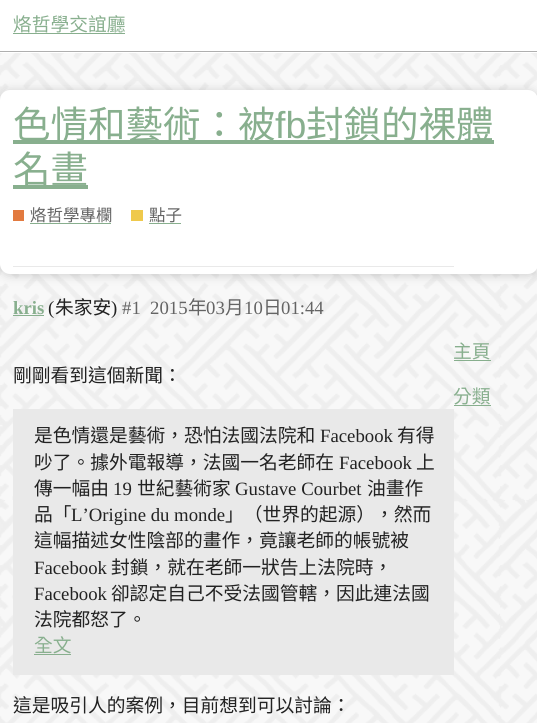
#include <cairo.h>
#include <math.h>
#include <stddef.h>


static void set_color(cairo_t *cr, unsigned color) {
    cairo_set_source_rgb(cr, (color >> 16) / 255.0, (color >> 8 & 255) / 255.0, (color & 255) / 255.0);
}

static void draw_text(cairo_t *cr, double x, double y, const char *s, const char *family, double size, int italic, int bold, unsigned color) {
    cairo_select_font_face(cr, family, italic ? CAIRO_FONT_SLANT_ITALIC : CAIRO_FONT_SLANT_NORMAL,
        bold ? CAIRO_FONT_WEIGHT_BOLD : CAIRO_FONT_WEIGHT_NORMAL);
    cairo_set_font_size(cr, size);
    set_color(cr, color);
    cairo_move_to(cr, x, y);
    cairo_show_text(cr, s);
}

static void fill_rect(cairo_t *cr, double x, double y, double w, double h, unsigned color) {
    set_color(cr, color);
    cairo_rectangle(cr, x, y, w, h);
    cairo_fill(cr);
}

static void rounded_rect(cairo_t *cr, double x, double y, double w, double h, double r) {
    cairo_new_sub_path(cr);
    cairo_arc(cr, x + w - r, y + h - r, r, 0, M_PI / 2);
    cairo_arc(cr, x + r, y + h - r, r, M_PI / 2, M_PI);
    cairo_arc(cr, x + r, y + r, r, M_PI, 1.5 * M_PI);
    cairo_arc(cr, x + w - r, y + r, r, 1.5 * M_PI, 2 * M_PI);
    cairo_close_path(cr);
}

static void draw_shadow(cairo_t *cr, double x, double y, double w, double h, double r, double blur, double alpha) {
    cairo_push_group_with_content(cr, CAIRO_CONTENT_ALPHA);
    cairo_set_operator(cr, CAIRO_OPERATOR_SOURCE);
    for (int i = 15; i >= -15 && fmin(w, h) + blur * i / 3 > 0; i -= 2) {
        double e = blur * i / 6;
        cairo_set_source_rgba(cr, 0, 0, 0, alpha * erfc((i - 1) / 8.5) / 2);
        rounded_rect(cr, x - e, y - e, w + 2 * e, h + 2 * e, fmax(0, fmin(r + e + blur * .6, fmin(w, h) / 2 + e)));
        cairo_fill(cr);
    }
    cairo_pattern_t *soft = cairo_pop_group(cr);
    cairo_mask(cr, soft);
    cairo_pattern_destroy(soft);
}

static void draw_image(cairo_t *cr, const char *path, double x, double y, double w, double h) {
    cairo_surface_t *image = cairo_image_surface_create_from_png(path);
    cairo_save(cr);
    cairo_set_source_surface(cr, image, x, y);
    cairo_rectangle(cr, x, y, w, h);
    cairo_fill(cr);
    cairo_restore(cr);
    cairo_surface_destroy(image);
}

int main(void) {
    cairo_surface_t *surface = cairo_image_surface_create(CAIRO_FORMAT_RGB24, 537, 723);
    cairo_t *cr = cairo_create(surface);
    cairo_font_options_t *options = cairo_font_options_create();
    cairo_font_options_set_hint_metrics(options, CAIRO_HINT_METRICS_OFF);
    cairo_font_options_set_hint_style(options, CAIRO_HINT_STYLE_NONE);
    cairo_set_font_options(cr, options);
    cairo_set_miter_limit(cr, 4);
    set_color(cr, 0xF8F8F8);
    cairo_paint(cr);
    fill_rect(cr, 0, 0, 537, 53, 0xFFFFFF);
    fill_rect(cr, 0, 51, 537, 1, 0xAFAFAF);
    draw_text(cr, 13, 31, "烙哲學交誼廳", "Noto Sans CJK TC", 18.75, 0, 0, 0x88AF8E);
    fill_rect(cr, 13, 33, 112, 1, 0x88AF8E);
    draw_image(cr, "assets/img1.png", 0, 53, 537, 670);
    set_color(cr, 0x000000);
    draw_shadow(cr, 0, 91, 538, 184, 10, 5, 0.18);
    set_color(cr, 0xFFFFFF);
    rounded_rect(cr, 0, 90, 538, 184, 10);
    cairo_fill(cr);
    fill_rect(cr, 13, 140, 481, 4, 0x88AF8E);
    draw_text(cr, 13, 138, "色情和藝術：被", "Noto Sans CJK TC", 37.5, 0, 0, 0x88AF8E);
    draw_text(cr, 275, 138, "fb", "Liberation Sans", 37.5, 0, 0, 0x88AF8E);
    draw_text(cr, 306, 138, "封鎖的裸體", "Noto Sans CJK TC", 37.5, 0, 0, 0x88AF8E);
    fill_rect(cr, 13, 185, 75, 4, 0x88AF8E);
    draw_text(cr, 13, 183, "名畫", "Noto Sans CJK TC", 37.5, 0, 0, 0x88AF8E);
    fill_rect(cr, 13, 210, 11, 11, 0xE27A3F);
    draw_text(cr, 30, 221, "烙哲學專欄", "Noto Sans CJK TC", 16.5, 0, 0, 0x646464);
    fill_rect(cr, 30, 223, 81, 1, 0x88AF8E);
    fill_rect(cr, 131, 210, 12, 11, 0xEFC94C);
    draw_text(cr, 149, 221, "點子", "Noto Sans CJK TC", 16.5, 0, 0, 0x646464);
    fill_rect(cr, 149, 223, 32, 1, 0x88AF8E);
    fill_rect(cr, 13, 266, 441, 1, 0xE9E9E9);
    draw_text(cr, 13, 314, "kris", "Liberation Serif", 18.75, 0, 1, 0x88AF8E);
    fill_rect(cr, 13, 315, 31, 1, 0x88AF8E);
    draw_text(cr, 48, 314, "(", "Liberation Serif", 18.75, 0, 0, 0x222222);
    draw_text(cr, 55, 314, "朱家安", "Noto Sans CJK TC", 18.75, 0, 0, 0x222222);
    draw_text(cr, 111, 314, ")", "Liberation Serif", 18.75, 0, 0, 0x222222);
    draw_text(cr, 122, 314, "#1", "Liberation Serif", 18.75, 0, 0, 0x646464);
    draw_text(cr, 150, 314, "2015", "Liberation Serif", 18.75, 0, 0, 0x646464);
    draw_text(cr, 188, 314, "年", "Noto Sans CJK TC", 18.75, 0, 0, 0x646464);
    draw_text(cr, 206, 314, "03", "Liberation Serif", 18.75, 0, 0, 0x646464);
    draw_text(cr, 225, 314, "月", "Noto Sans CJK TC", 18.75, 0, 0, 0x646464);
    draw_text(cr, 244, 314, "10", "Liberation Serif", 18.75, 0, 0, 0x646464);
    draw_text(cr, 263, 314, "日", "Noto Sans CJK TC", 18.75, 0, 0, 0x646464);
    draw_text(cr, 281, 314, "01:44", "Liberation Serif", 18.75, 0, 0, 0x646464);
    draw_text(cr, 13, 382, "剛剛看到這個新聞：", "Noto Sans CJK TC", 18.75, 0, 0, 0x222222);
    fill_rect(cr, 13, 409, 441, 266, 0xE9E9E9);
    draw_text(cr, 34, 442, "是色情還是藝術，恐怕法國法院和", "Noto Sans CJK TC", 18.75, 0, 0, 0x222222);
    draw_text(cr, 320, 442, "Facebook", "Liberation Serif", 18.75, 0, 0, 0x222222);
    draw_text(cr, 397, 442, "有得", "Noto Sans CJK TC", 18.75, 0, 0, 0x222222);
    draw_text(cr, 34, 469, "吵了。據外電報導，法國一名老師在", "Noto Sans CJK TC", 18.75, 0, 0, 0x222222);
    draw_text(cr, 339, 469, "Facebook", "Liberation Serif", 18.75, 0, 0, 0x222222);
    draw_text(cr, 416, 469, "上", "Noto Sans CJK TC", 18.75, 0, 0, 0x222222);
    draw_text(cr, 34, 495, "傳一幅由", "Noto Sans CJK TC", 18.75, 0, 0, 0x222222);
    draw_text(cr, 113, 495, "19", "Liberation Serif", 18.75, 0, 0, 0x222222);
    draw_text(cr, 137, 495, "世紀藝術家", "Noto Sans CJK TC", 18.75, 0, 0, 0x222222);
    draw_text(cr, 235, 495, "Gustave Courbet", "Liberation Serif", 18.75, 0, 0, 0x222222);
    draw_text(cr, 367, 495, "油畫作", "Noto Sans CJK TC", 18.75, 0, 0, 0x222222);
    draw_text(cr, 34, 521, "品「", "Noto Sans CJK TC", 18.75, 0, 0, 0x222222);
    draw_text(cr, 71, 521, "L’Origine du monde", "Liberation Serif", 18.75, 0, 0, 0x222222);
    draw_text(cr, 225, 521, "」（世界的起源），然而", "Noto Sans CJK TC", 18.75, 0, 0, 0x222222);
    draw_text(cr, 34, 547, "這幅描述女性陰部的畫作，竟讓老師的帳號被", "Noto Sans CJK TC", 18.75, 0, 0, 0x222222);
    draw_text(cr, 34, 574, "Facebook", "Liberation Serif", 18.75, 0, 0, 0x222222);
    draw_text(cr, 111, 574, "封鎖，就在老師一狀告上法院時，", "Noto Sans CJK TC", 18.75, 0, 0, 0x222222);
    draw_text(cr, 34, 600, "Facebook", "Liberation Serif", 18.75, 0, 0, 0x222222);
    draw_text(cr, 111, 600, "卻認定自己不受法國管轄，因此連法國", "Noto Sans CJK TC", 18.75, 0, 0, 0x222222);
    draw_text(cr, 34, 626, "法院都怒了。", "Noto Sans CJK TC", 18.75, 0, 0, 0x222222);
    draw_text(cr, 34, 652, "全文", "Noto Sans CJK TC", 18.75, 0, 0, 0x88AF8E);
    fill_rect(cr, 34, 654, 37, 1, 0x88AF8E);
    draw_text(cr, 13, 712, "這是吸引人的案例，目前想到可以討論：", "Noto Sans CJK TC", 18.75, 0, 0, 0x222222);
    draw_text(cr, 453, 358, "主頁", "Noto Sans CJK TC", 18.75, 0, 0, 0x88AF8E);
    fill_rect(cr, 454, 360, 37, 1, 0x88AF8E);
    draw_text(cr, 453, 403, "分類", "Noto Sans CJK TC", 18.75, 0, 0, 0x88AF8E);
    fill_rect(cr, 454, 405, 37, 1, 0x88AF8E);
    cairo_surface_write_to_png(surface, "output.png");
    cairo_font_options_destroy(options);
    cairo_destroy(cr);
    cairo_surface_destroy(surface);
    return 0;
}
